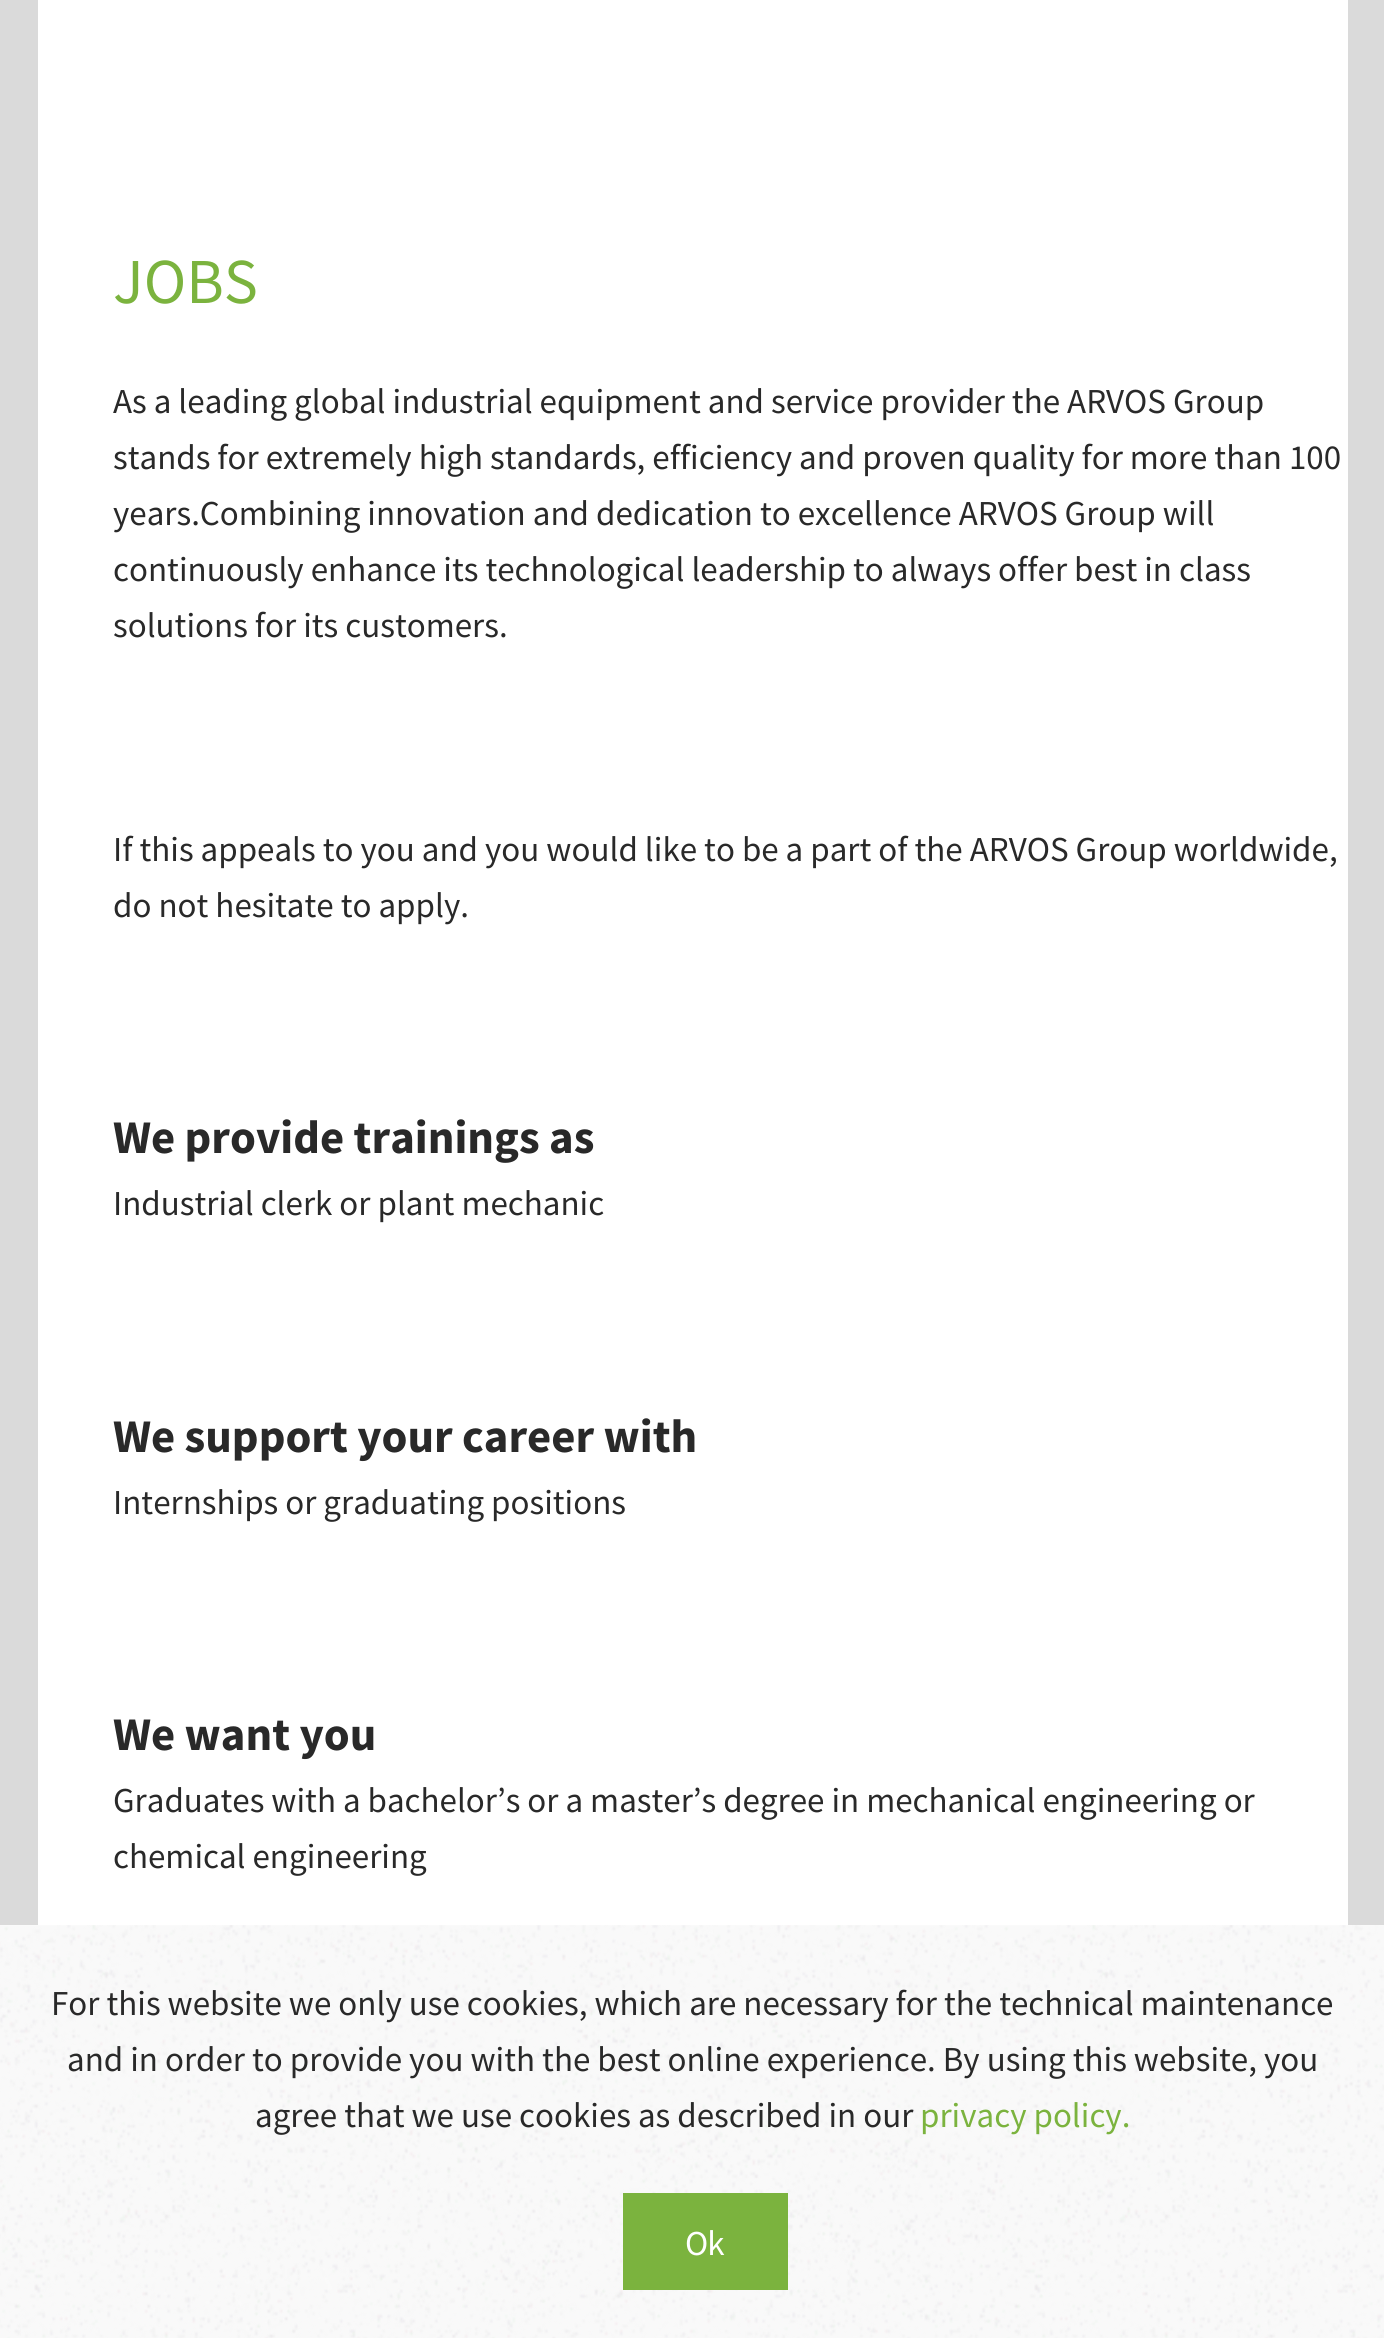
#include <cairo.h>
#include <math.h>
#include <stddef.h>


static void set_color(cairo_t *cr, unsigned color) {
    cairo_set_source_rgb(cr, (color >> 16) / 255.0, (color >> 8 & 255) / 255.0, (color & 255) / 255.0);
}

static void draw_text(cairo_t *cr, double x, double y, const char *s, const char *family, double size, int italic, int bold, unsigned color) {
    cairo_select_font_face(cr, family, italic ? CAIRO_FONT_SLANT_ITALIC : CAIRO_FONT_SLANT_NORMAL,
        bold ? CAIRO_FONT_WEIGHT_BOLD : CAIRO_FONT_WEIGHT_NORMAL);
    cairo_set_font_size(cr, size);
    set_color(cr, color);
    cairo_move_to(cr, x, y);
    cairo_show_text(cr, s);
}

static void draw_spaced(cairo_t *cr, double x, double y, const char *s, double letter, double word) {
    cairo_move_to(cr, x, y);
    while (*s) {
        char ch[5] = {0};
        int n = 0;
        do ch[n++] = *s++; while ((*s & 0xC0) == 0x80);
        cairo_show_text(cr, ch);
        cairo_rel_move_to(cr, letter + word * (*ch == ' '), 0);
    }
}

static void fill_rect(cairo_t *cr, double x, double y, double w, double h, unsigned color) {
    set_color(cr, color);
    cairo_rectangle(cr, x, y, w, h);
    cairo_fill(cr);
}

static void draw_image(cairo_t *cr, const char *path, double x, double y, double w, double h) {
    cairo_surface_t *image = cairo_image_surface_create_from_png(path);
    cairo_save(cr);
    cairo_set_source_surface(cr, image, x, y);
    cairo_rectangle(cr, x, y, w, h);
    cairo_fill(cr);
    cairo_restore(cr);
    cairo_surface_destroy(image);
}

int main(void) {
    cairo_surface_t *surface = cairo_image_surface_create(CAIRO_FORMAT_RGB24, 1384, 2338);
    cairo_t *cr = cairo_create(surface);
    cairo_font_options_t *options = cairo_font_options_create();
    cairo_font_options_set_hint_metrics(options, CAIRO_HINT_METRICS_OFF);
    cairo_font_options_set_hint_style(options, CAIRO_HINT_STYLE_NONE);
    cairo_set_font_options(cr, options);
    cairo_set_miter_limit(cr, 4);
    set_color(cr, 0xDADADA);
    cairo_paint(cr);
    fill_rect(cr, 38, 0, 1310, 1925, 0xFFFFFF);
    draw_text(cr, 113, 303, "JOBS", "Source Sans Pro", 64, 0, 0, 0x7BB33E);
    draw_text(cr, 113, 413, "As a leading global industrial equipment and service provider the ARVOS Group", "Source Sans Pro", 35, 0, 0, 0x292929);
    draw_text(cr, 113, 469, "stands for extremely high standards, efficiency and proven quality for more than 100", "Source Sans Pro", 35, 0, 0, 0x292929);
    draw_text(cr, 113, 525, "years.Combining innovation and dedication to excellence ARVOS Group will", "Source Sans Pro", 35, 0, 0, 0x292929);
    draw_text(cr, 113, 581, "continuously enhance its technological leadership to always offer best in class", "Source Sans Pro", 35, 0, 0, 0x292929);
    draw_text(cr, 113, 637, "solutions for its customers.", "Source Sans Pro", 35, 0, 0, 0x292929);
    draw_text(cr, 113, 861, "If this appeals to you and you would like to be a part of the ARVOS Group worldwide,", "Source Sans Pro", 35, 0, 0, 0x292929);
    draw_text(cr, 113, 917, "do not hesitate to apply.", "Source Sans Pro", 35, 0, 0, 0x292929);
    draw_text(cr, 113, 1153, "We provide trainings as", "Source Sans Pro", 46.75, 0, 1, 0x292929);
    draw_text(cr, 113, 1215, "Industrial clerk or plant mechanic", "Source Sans Pro", 35, 0, 0, 0x292929);
    draw_text(cr, 113, 1452, "We support your career with", "Source Sans Pro", 46.75, 0, 1, 0x292929);
    draw_text(cr, 113, 1514, "Internships or graduating positions", "Source Sans Pro", 35, 0, 0, 0x292929);
    draw_text(cr, 113, 1750, "We want you", "Source Sans Pro", 46.75, 0, 1, 0x292929);
    draw_text(cr, 113, 1812, "Graduates with a bachelor’s or a master’s degree in mechanical engineering or", "Source Sans Pro", 35, 0, 0, 0x292929);
    draw_text(cr, 113, 1868, "chemical engineering", "Source Sans Pro", 35, 0, 0, 0x292929);
    fill_rect(cr, 0, 1925, 1384, 413, 0xFAFAFA);
    draw_image(cr, "assets/img1.png", 0, 1925, 1384, 413);
    draw_text(cr, 51, 2015, "For this website we only use cookies, which are necessary for the technical maintenance", "Source Sans Pro", 35, 0, 0, 0x292929);
    draw_text(cr, 67, 2071, "and in order to provide you with the best online experience. By using this website, you", "Source Sans Pro", 35, 0, 0, 0x292929);
    draw_text(cr, 255, 2127, "agree that we use cookies as described in our", "Source Sans Pro", 35, 0, 0, 0x292929);
    draw_text(cr, 920, 2127, "privacy policy.", "Source Sans Pro", 35, 0, 0, 0x7BB33E);
    fill_rect(cr, 623, 2193, 165, 97, 0x7BB33E);
    set_color(cr, 0xFFFFFF);
    draw_spaced(cr, 685, 2255, "Ok", -1, 0);
    cairo_surface_write_to_png(surface, "output.png");
    cairo_font_options_destroy(options);
    cairo_destroy(cr);
    cairo_surface_destroy(surface);
    return 0;
}
